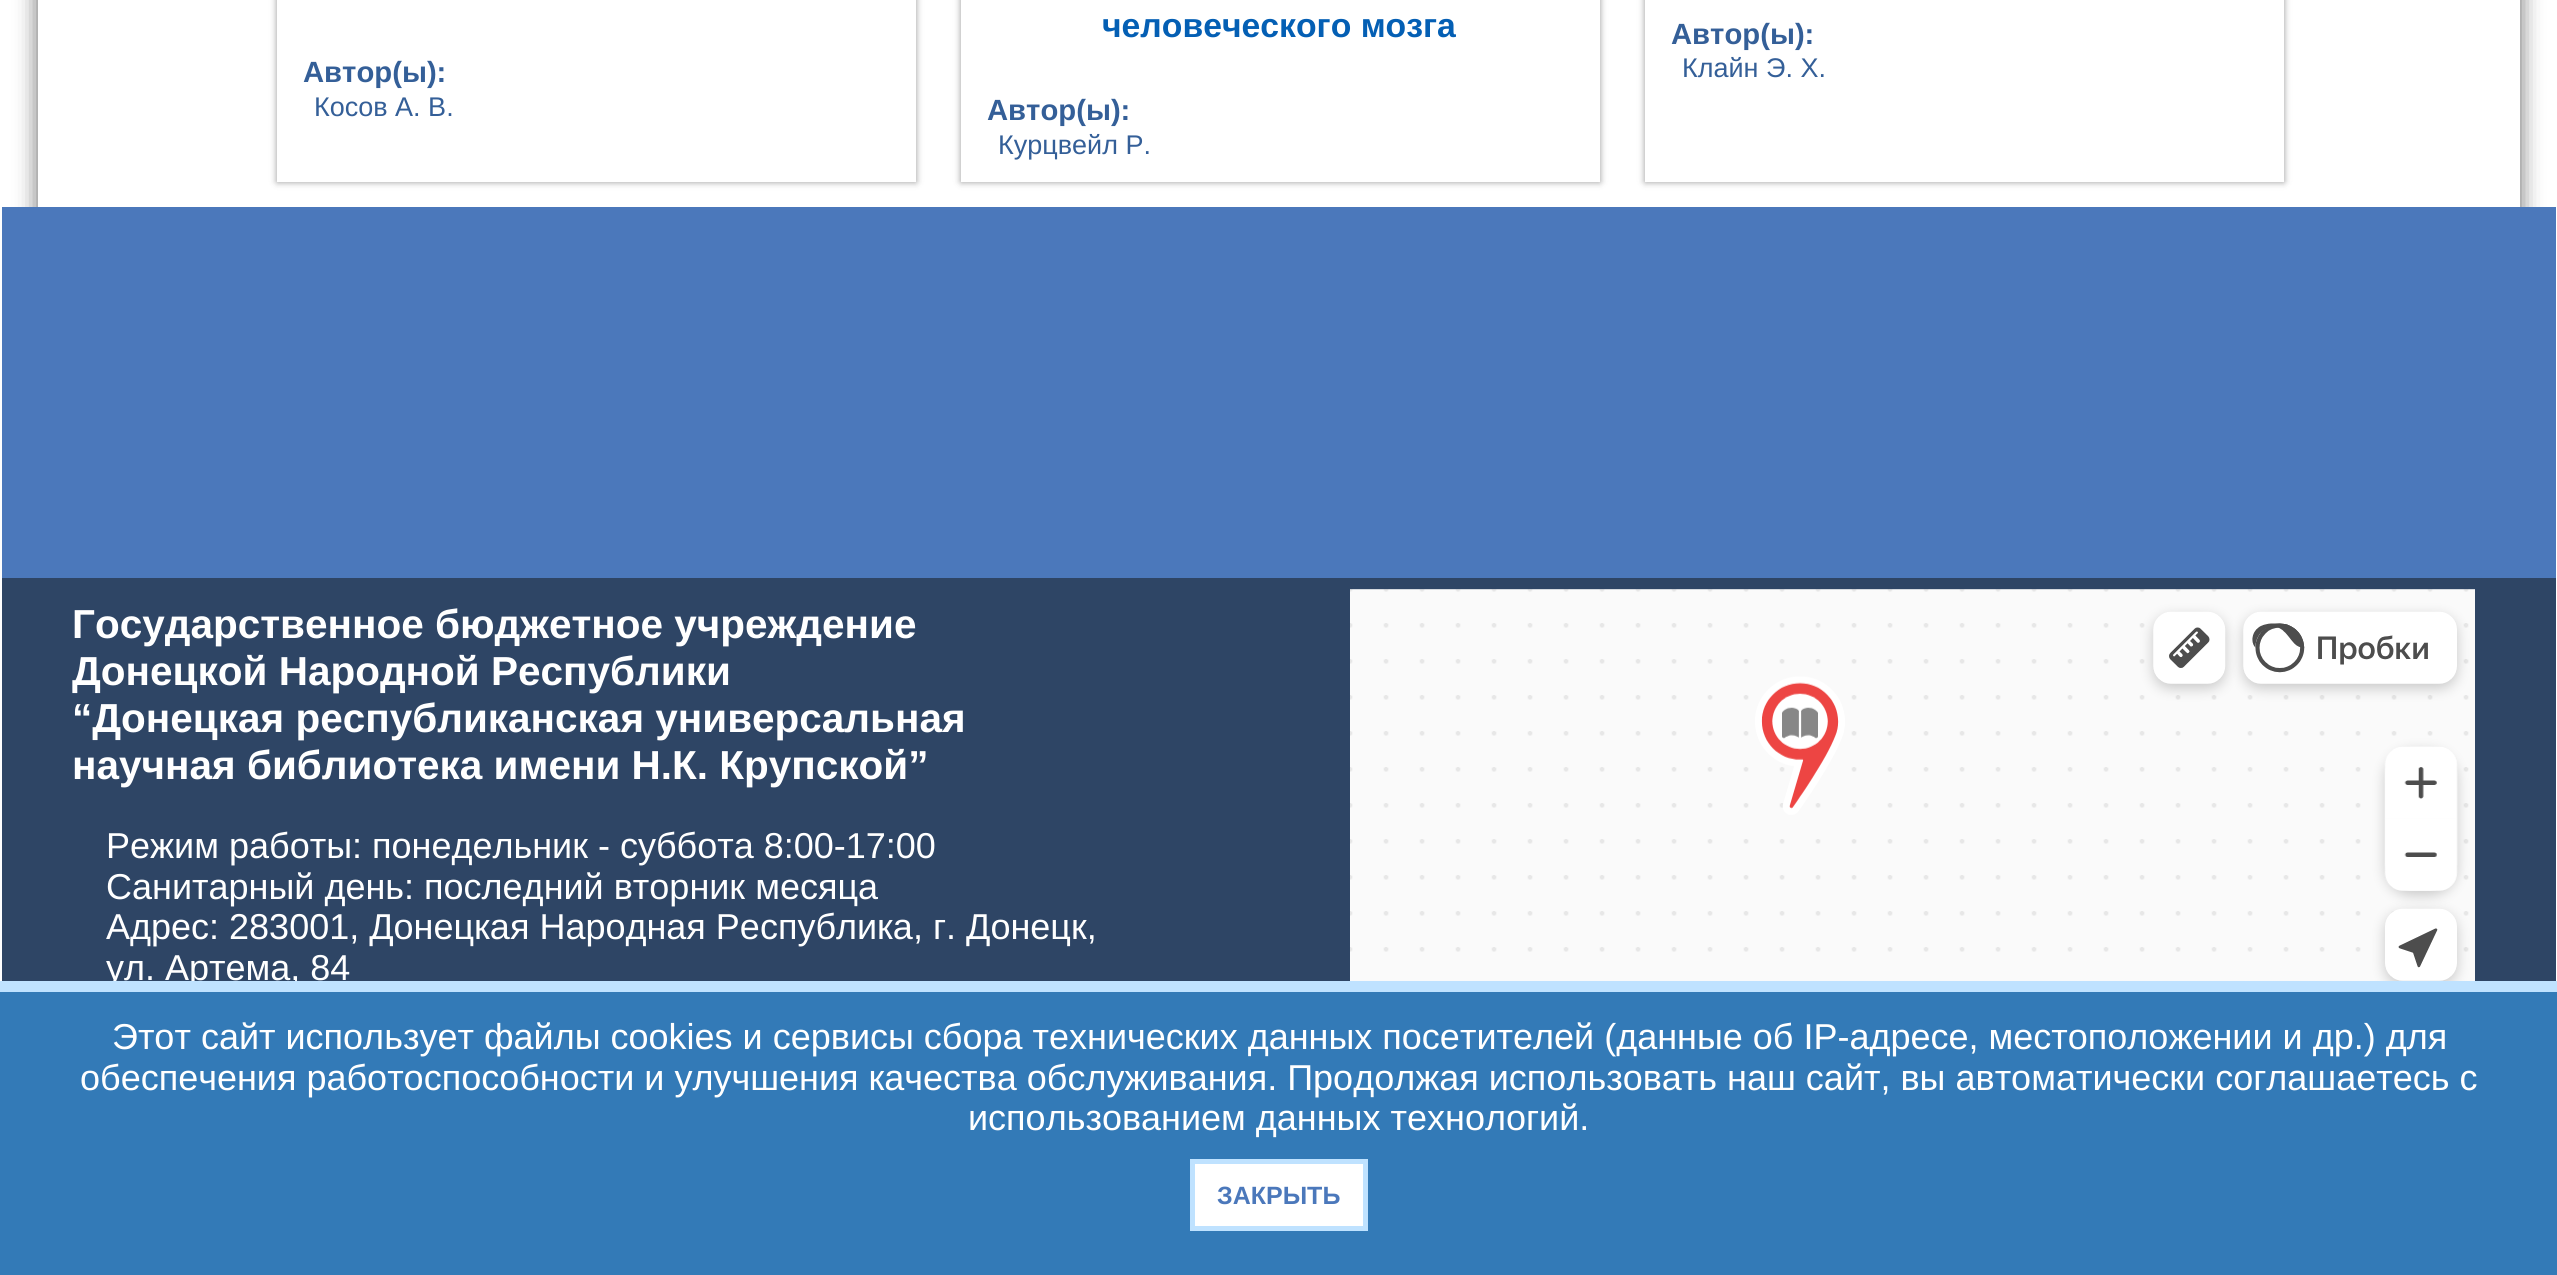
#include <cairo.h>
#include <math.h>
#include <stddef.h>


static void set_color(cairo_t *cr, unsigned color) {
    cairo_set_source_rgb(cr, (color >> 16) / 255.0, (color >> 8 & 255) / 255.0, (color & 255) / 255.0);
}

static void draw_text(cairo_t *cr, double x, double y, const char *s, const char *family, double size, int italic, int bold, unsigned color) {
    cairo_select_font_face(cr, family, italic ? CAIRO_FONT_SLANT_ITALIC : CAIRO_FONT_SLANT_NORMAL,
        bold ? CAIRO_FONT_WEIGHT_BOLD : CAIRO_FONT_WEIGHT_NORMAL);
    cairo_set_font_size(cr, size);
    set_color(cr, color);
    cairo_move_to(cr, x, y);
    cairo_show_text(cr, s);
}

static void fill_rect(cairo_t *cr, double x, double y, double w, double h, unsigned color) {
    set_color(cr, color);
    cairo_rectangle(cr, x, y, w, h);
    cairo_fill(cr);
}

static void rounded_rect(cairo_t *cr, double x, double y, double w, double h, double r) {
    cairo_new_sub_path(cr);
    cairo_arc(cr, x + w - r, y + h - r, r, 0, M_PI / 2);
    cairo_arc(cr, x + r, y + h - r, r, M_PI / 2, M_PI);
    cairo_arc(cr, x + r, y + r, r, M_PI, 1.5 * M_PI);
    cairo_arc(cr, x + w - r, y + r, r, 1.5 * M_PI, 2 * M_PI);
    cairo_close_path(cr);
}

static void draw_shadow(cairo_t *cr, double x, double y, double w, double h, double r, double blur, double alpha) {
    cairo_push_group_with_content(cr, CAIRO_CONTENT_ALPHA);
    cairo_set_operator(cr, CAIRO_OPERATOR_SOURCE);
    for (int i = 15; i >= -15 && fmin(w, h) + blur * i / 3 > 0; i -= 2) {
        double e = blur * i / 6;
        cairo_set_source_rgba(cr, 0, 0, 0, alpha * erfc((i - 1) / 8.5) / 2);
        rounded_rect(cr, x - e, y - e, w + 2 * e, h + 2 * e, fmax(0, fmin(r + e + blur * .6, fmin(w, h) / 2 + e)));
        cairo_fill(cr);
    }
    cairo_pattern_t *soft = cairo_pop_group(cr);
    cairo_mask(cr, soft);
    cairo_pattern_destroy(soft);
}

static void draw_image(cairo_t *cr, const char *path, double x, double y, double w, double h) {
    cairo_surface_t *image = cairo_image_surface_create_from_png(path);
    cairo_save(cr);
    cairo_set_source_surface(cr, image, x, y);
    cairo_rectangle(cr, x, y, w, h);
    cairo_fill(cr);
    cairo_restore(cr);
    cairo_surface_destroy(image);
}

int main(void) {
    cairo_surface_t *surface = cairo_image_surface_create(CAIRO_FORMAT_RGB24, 2557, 1275);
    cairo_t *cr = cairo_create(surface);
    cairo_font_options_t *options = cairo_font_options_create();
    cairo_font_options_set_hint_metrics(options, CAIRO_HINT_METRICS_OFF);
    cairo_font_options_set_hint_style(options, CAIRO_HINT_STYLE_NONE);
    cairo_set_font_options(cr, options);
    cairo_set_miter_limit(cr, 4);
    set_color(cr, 0xFFFFFF);
    cairo_paint(cr);
    set_color(cr, 0x323232);
    draw_shadow(cr, 38, -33, 2482, 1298, 0, 11, 0.75);
    fill_rect(cr, 38, 0, 2482, 207, 0xFFFFFF);
    cairo_save(cr);
    cairo_set_fill_rule(cr, CAIRO_FILL_RULE_EVEN_ODD);
    cairo_new_path(cr);
    cairo_move_to(cr, 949, 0);
    cairo_line_to(cr, 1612, 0);
    cairo_line_to(cr, 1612, 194);
    cairo_line_to(cr, 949, 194);
    cairo_close_path(cr);
    cairo_move_to(cr, 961, -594);
    cairo_line_to(cr, 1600, -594);
    cairo_line_to(cr, 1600, 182);
    cairo_line_to(cr, 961, 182);
    cairo_close_path(cr);
    cairo_clip(cr);
    set_color(cr, 0x323232);
    draw_shadow(cr, 961, -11, 639, 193, 0, 3.5, 0.5);
    cairo_restore(cr);
    draw_text(cr, 1102, 37, "человеческого мозга", "Liberation Sans", 33.75, 0, 1, 0x045FB4);
    draw_text(cr, 987, 120, "Автор(ы):", "Liberation Sans", 29.25, 0, 1, 0x345F98);
    draw_text(cr, 998, 154, "Курцвейл Р.", "Liberation Sans", 27, 0, 0, 0x345F98);
    cairo_save(cr);
    cairo_set_fill_rule(cr, CAIRO_FILL_RULE_EVEN_ODD);
    cairo_new_path(cr);
    cairo_move_to(cr, 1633, 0);
    cairo_line_to(cr, 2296, 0);
    cairo_line_to(cr, 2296, 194);
    cairo_line_to(cr, 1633, 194);
    cairo_close_path(cr);
    cairo_move_to(cr, 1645, -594);
    cairo_line_to(cr, 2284, -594);
    cairo_line_to(cr, 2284, 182);
    cairo_line_to(cr, 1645, 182);
    cairo_close_path(cr);
    cairo_clip(cr);
    set_color(cr, 0x323232);
    draw_shadow(cr, 1645, -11, 639, 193, 0, 3.5, 0.5);
    cairo_restore(cr);
    draw_text(cr, 1671, 44, "Автор(ы):", "Liberation Sans", 29.25, 0, 1, 0x345F98);
    draw_text(cr, 1682, 77, "Клайн Э. Х.", "Liberation Sans", 27, 0, 0, 0x345F98);
    cairo_save(cr);
    cairo_set_fill_rule(cr, CAIRO_FILL_RULE_EVEN_ODD);
    cairo_new_path(cr);
    cairo_move_to(cr, 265, 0);
    cairo_line_to(cr, 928, 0);
    cairo_line_to(cr, 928, 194);
    cairo_line_to(cr, 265, 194);
    cairo_close_path(cr);
    cairo_move_to(cr, 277, -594);
    cairo_line_to(cr, 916, -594);
    cairo_line_to(cr, 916, 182);
    cairo_line_to(cr, 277, 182);
    cairo_close_path(cr);
    cairo_clip(cr);
    set_color(cr, 0x323232);
    draw_shadow(cr, 277, -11, 639, 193, 0, 3.5, 0.5);
    cairo_restore(cr);
    draw_text(cr, 303, 82, "Автор(ы):", "Liberation Sans", 29.25, 0, 1, 0x345F98);
    draw_text(cr, 314, 116, "Косов А. В.", "Liberation Sans", 27, 0, 0, 0x345F98);
    fill_rect(cr, 2, 207, 2554, 371, 0x4B78BB);
    fill_rect(cr, 2, 578, 2554, 403, 0x2E4565);
    draw_text(cr, 72, 638, "Государственное бюджетное учреждение", "Liberation Sans", 40.5, 0, 1, 0xFFFFFF);
    draw_text(cr, 72, 685, "Донецкой Народной Республики", "Liberation Sans", 40.5, 0, 1, 0xFFFFFF);
    draw_text(cr, 72, 732, "“Донецкая республиканская универсальная", "Liberation Sans", 40.5, 0, 1, 0xFFFFFF);
    draw_text(cr, 72, 779, "научная библиотека имени Н.К. Крупской”", "Liberation Sans", 40.5, 0, 1, 0xFFFFFF);
    draw_text(cr, 106, 858, "Режим работы: понедельник - суббота 8:00-17:00", "Liberation Sans", 36, 0, 0, 0xFFFFFF);
    draw_text(cr, 106, 899, "Санитарный день: последний вторник месяца", "Liberation Sans", 36, 0, 0, 0xFFFFFF);
    draw_text(cr, 106, 939, "Адрес: 283001, Донецкая Народная Республика, г. Донецк,", "Liberation Sans", 36, 0, 0, 0xFFFFFF);
    draw_text(cr, 106, 980, "ул. Артема, 84", "Liberation Sans", 36, 0, 0, 0xFFFFFF);
    draw_image(cr, "assets/img1.png", 1350, 589, 1125, 392);
    fill_rect(cr, 0, 992, 2557, 283, 0x337AB7);
    fill_rect(cr, 0, 981, 2557, 11, 0xBFE2FF);
    draw_text(cr, 112, 1049, "Этот сайт использует файлы cookies и сервисы сбора технических данных посетителей (данные об IP-адресе, местоположении и др.) для", "Liberation Sans", 36, 0, 0, 0xFFFFFF);
    draw_text(cr, 80, 1090, "обеспечения работоспособности и улучшения качества обслуживания. Продолжая использовать наш сайт, вы автоматически соглашаетесь с", "Liberation Sans", 36, 0, 0, 0xFFFFFF);
    draw_text(cr, 968, 1130, "использованием данных технологий.", "Liberation Sans", 36, 0, 0, 0xFFFFFF);
    cairo_rectangle(cr, 1192.5, 1161.5, 173, 67);
    cairo_fill_preserve(cr);
    set_color(cr, 0xBFE2FF);
    cairo_set_line_width(cr, 5);
    cairo_stroke(cr);
    draw_text(cr, 1217, 1204, "ЗАКРЫТЬ", "Liberation Sans", 25, 0, 1, 0x4B78BB);
    cairo_surface_write_to_png(surface, "output.png");
    cairo_font_options_destroy(options);
    cairo_destroy(cr);
    cairo_surface_destroy(surface);
    return 0;
}
